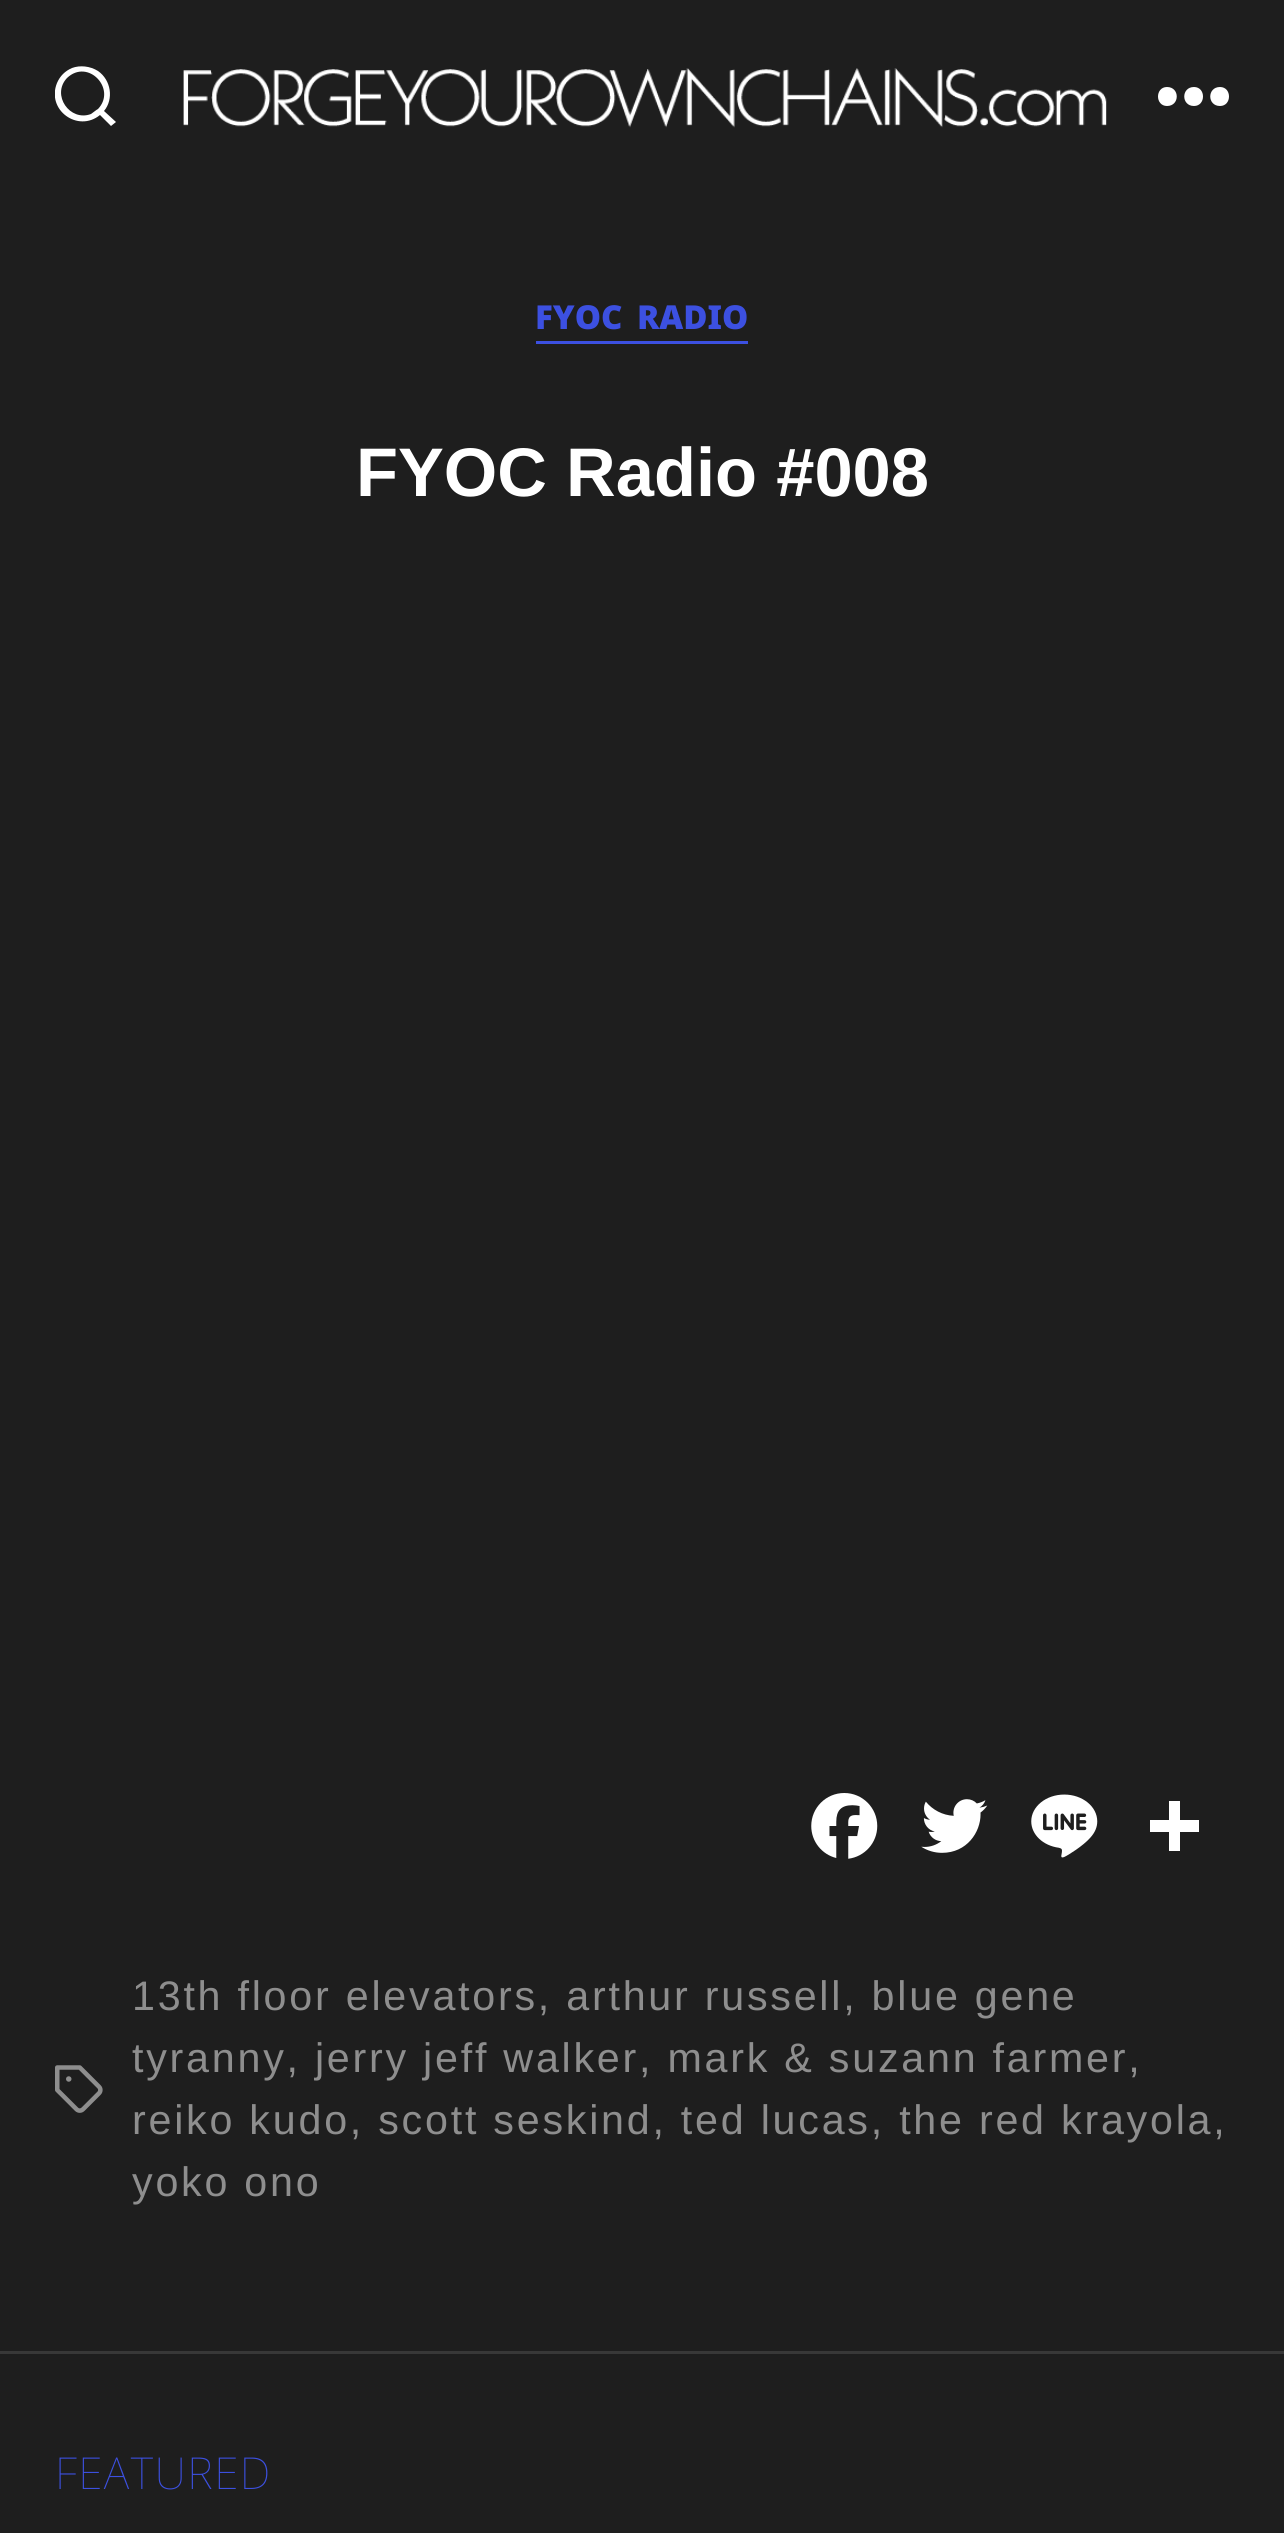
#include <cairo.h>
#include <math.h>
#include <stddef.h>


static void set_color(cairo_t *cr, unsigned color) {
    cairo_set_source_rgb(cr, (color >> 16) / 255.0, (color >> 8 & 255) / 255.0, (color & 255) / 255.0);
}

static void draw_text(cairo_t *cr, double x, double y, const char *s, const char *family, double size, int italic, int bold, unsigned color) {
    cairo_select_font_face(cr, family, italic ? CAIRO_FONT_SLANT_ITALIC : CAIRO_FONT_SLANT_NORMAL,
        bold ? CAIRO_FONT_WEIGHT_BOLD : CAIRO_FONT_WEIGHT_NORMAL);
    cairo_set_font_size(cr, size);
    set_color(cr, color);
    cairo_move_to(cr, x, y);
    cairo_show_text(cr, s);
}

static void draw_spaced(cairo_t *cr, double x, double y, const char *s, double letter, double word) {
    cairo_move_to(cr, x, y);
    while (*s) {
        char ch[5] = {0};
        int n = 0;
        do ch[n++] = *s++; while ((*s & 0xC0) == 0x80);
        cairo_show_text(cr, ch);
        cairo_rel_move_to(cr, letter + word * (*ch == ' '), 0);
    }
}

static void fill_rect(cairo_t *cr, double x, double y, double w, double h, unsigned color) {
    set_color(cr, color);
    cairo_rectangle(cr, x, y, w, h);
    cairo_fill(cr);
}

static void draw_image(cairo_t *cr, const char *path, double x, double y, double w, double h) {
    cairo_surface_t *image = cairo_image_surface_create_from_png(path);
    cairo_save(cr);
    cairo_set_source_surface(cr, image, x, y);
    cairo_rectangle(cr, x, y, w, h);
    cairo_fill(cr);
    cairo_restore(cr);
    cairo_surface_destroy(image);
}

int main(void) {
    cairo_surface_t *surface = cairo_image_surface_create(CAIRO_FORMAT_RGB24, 1284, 2533);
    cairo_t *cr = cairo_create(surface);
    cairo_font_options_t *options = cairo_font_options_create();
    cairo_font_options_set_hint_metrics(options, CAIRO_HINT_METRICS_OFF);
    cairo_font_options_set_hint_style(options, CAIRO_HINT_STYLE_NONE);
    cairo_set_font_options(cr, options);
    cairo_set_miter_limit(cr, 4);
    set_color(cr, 0x1E1E1E);
    cairo_paint(cr);
    cairo_save(cr);
    cairo_rectangle(cr, 55, 63, 61, 66);
    cairo_clip(cr);
    set_color(cr, 0xFFFFFF);
    cairo_new_path(cr);
    cairo_move_to(cr, 104, 111);
    cairo_line_to(cr, 116, 122);
    cairo_line_to(cr, 111, 126);
    cairo_line_to(cr, 100, 115);
    cairo_curve_to(cr, 78, 133, 46, 110, 57, 83);
    cairo_curve_to(cr, 60, 76, 65, 71, 72, 68);
    cairo_curve_to(cr, 80, 65, 90, 66, 98, 71);
    cairo_curve_to(cr, 111, 80, 114, 99, 104, 111);
    cairo_close_path(cr);
    cairo_move_to(cr, 98, 109);
    cairo_curve_to(cr, 117, 89, 88, 58, 67, 78);
    cairo_curve_to(cr, 51, 95, 70, 122, 91, 114);
    cairo_curve_to(cr, 94, 112, 96, 110, 98, 109);
    cairo_close_path(cr);
    cairo_fill(cr);
    cairo_restore(cr);
    draw_image(cr, "assets/img1.png", 183, 68, 924, 60);
    set_color(cr, 0xFFFFFF);
    cairo_set_fill_rule(cr, CAIRO_FILL_RULE_EVEN_ODD);
    cairo_new_path(cr);
    cairo_move_to(cr, 1167, 106);
    cairo_curve_to(cr, 1155, 106, 1155, 87, 1167, 87);
    cairo_curve_to(cr, 1180, 87, 1180, 106, 1167, 106);
    cairo_close_path(cr);
    cairo_move_to(cr, 1194, 106);
    cairo_curve_to(cr, 1181, 106, 1181, 87, 1194, 87);
    cairo_curve_to(cr, 1206, 87, 1206, 106, 1194, 106);
    cairo_close_path(cr);
    cairo_move_to(cr, 1220, 106);
    cairo_curve_to(cr, 1207, 106, 1207, 87, 1220, 87);
    cairo_curve_to(cr, 1232, 87, 1232, 106, 1220, 106);
    cairo_close_path(cr);
    cairo_fill(cr);
    fill_rect(cr, 536, 341, 212, 3, 0x3C50E1);
    cairo_select_font_face(cr, "Noto Sans Black", CAIRO_FONT_SLANT_NORMAL, CAIRO_FONT_WEIGHT_NORMAL);
    cairo_set_font_size(cr, 33);
    draw_spaced(cr, 535, 329, "FYOC RADIO", 0, 6);
    draw_text(cr, 356, 496, "FYOC Radio #008", "Liberation Sans", 68.75, 0, 1, 0xFFFFFF);
    draw_image(cr, "assets/img2.png", 811, 1793, 67, 66);
    draw_image(cr, "assets/img3.png", 921, 1799, 67, 54);
    draw_image(cr, "assets/img4.png", 1031, 1794, 67, 64);
    fill_rect(cr, 1169, 1801, 11, 50, 0xFFFFFF);
    fill_rect(cr, 1150, 1820, 49, 12, 0xFFFFFF);
    draw_image(cr, "assets/img5.png", 55, 2065, 48, 48);
    cairo_select_font_face(cr, "Liberation Sans", CAIRO_FONT_SLANT_NORMAL, CAIRO_FONT_WEIGHT_NORMAL);
    cairo_set_font_size(cr, 41.25);
    set_color(cr, 0x8E8E8E);
    draw_spaced(cr, 132, 2010, "13th floor elevators, arthur russell, blue gene", 2.75, 0);
    draw_spaced(cr, 132, 2072, "tyranny, jerry jeff walker, mark & suzann farmer,", 2.75, 0);
    draw_spaced(cr, 132, 2134, "reiko kudo, scott seskind, ted lucas, the red krayola,", 2.75, 0);
    draw_spaced(cr, 132, 2196, "yoko ono", 2.75, 0);
    fill_rect(cr, 0, 2351, 1284, 3, 0x383838);
    cairo_select_font_face(cr, "Noto Sans Thin", CAIRO_FONT_SLANT_NORMAL, CAIRO_FONT_WEIGHT_NORMAL);
    cairo_set_font_size(cr, 44);
    set_color(cr, 0x3C50E1);
    draw_spaced(cr, 55, 2489, "FEATURED", 1.5, 0);
    cairo_surface_write_to_png(surface, "output.png");
    cairo_font_options_destroy(options);
    cairo_destroy(cr);
    cairo_surface_destroy(surface);
    return 0;
}
